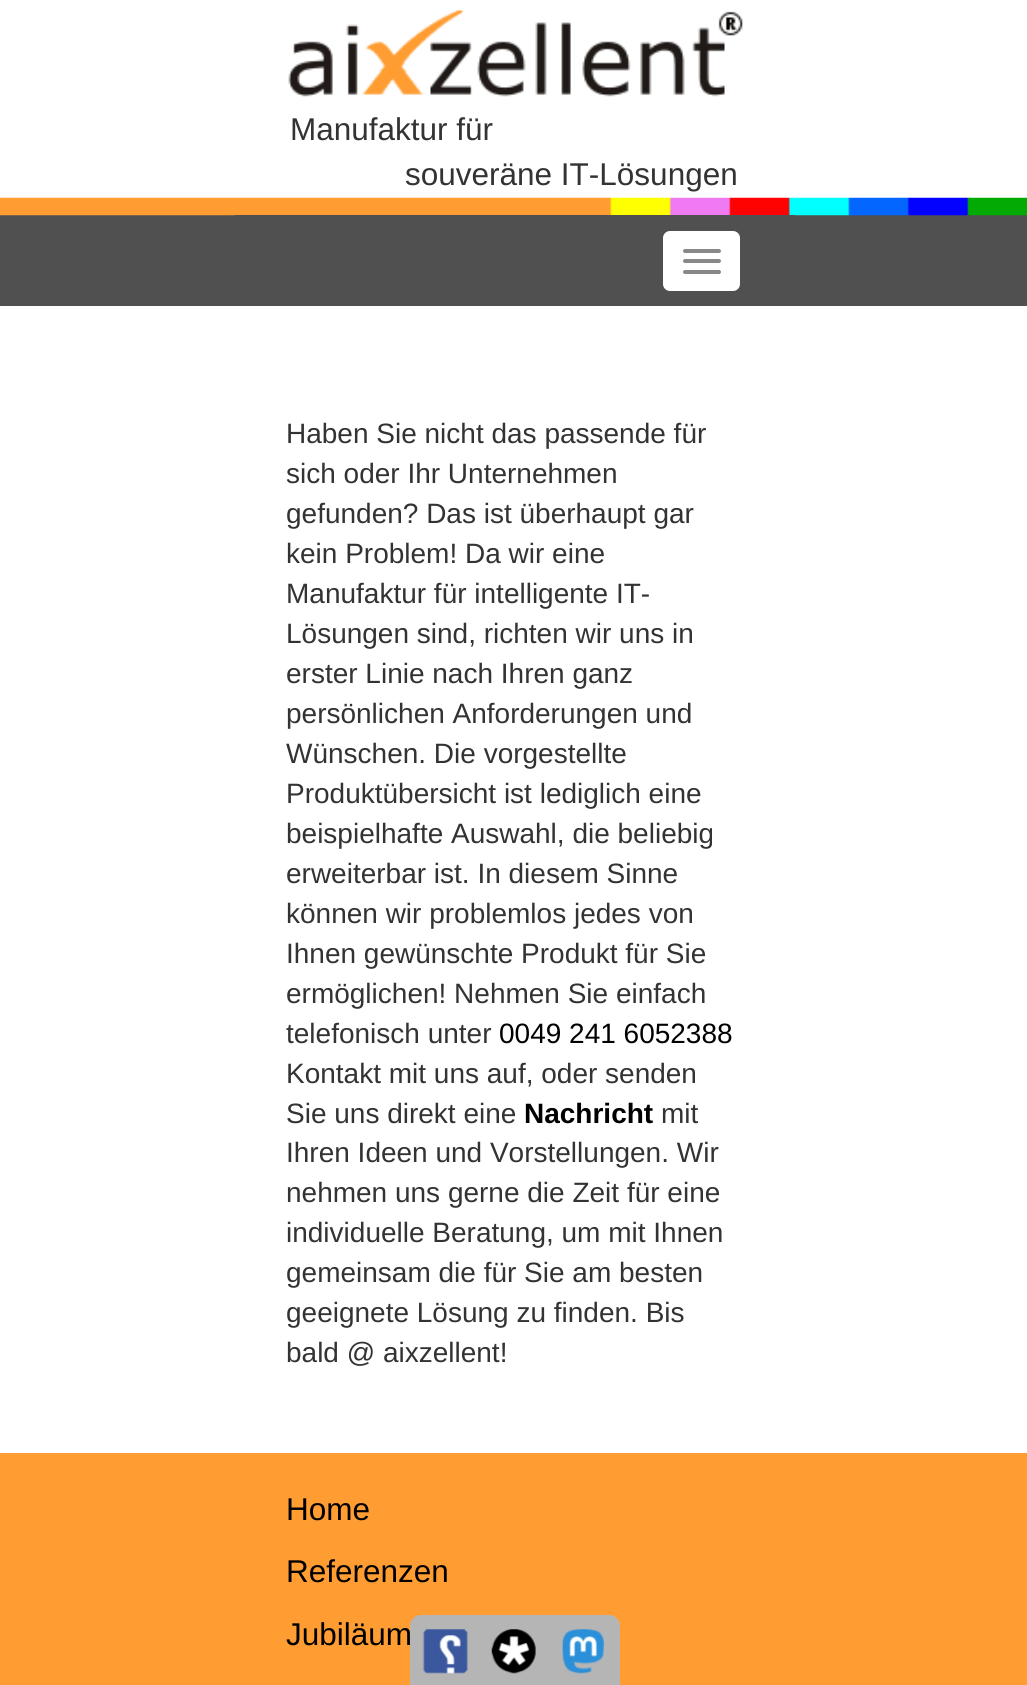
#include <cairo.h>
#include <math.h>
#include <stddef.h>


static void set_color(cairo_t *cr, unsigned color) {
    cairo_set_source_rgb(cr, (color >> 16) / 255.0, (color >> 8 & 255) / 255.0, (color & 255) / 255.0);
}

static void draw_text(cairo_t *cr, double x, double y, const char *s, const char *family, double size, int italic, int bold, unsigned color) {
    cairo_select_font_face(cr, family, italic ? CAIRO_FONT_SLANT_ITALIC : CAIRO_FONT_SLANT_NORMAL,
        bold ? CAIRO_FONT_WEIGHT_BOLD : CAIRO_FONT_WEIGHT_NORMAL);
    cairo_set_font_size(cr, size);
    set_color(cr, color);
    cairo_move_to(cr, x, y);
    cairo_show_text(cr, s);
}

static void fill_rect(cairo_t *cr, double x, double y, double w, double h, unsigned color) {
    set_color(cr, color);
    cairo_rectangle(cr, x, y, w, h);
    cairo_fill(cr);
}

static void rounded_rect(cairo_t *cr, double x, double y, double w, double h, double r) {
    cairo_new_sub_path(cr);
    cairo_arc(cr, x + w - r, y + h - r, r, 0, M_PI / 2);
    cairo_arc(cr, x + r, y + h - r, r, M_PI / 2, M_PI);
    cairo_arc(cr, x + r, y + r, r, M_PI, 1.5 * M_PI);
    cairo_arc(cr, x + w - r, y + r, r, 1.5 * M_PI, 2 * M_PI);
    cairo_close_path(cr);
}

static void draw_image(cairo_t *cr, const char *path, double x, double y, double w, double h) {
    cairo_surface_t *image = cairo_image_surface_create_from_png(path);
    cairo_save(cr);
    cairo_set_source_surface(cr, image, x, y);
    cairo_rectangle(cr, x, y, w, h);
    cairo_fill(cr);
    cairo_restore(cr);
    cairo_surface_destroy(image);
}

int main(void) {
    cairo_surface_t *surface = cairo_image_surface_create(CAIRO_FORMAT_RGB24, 1027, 1685);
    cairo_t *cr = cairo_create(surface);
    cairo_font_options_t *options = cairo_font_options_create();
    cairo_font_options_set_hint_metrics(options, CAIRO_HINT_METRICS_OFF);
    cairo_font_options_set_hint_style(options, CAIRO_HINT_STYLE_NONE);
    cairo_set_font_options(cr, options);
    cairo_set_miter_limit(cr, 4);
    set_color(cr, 0xFFFFFF);
    cairo_paint(cr);
    draw_image(cr, "assets/img1.png", 288, 10, 455, 87);
    draw_text(cr, 290, 140, "Manufaktur für", "Liberation Sans", 31.5, 0, 0, 0x333333);
    draw_text(cr, 405, 185, "souveräne IT-Lösungen", "Liberation Sans", 31.5, 0, 0, 0x333333);
    fill_rect(cr, 0, 215, 1027, 91, 0x505050);
    draw_image(cr, "assets/img2.png", 0, 197, 1027, 19);
    fill_rect(cr, 235, 215, 560, 1, 0x505050);
    set_color(cr, 0xFFFFFF);
    rounded_rect(cr, 664, 232, 75, 58, 6);
    cairo_fill_preserve(cr);
    cairo_stroke(cr);
    set_color(cr, 0x888888);
    rounded_rect(cr, 683, 249, 38, 4, 2);
    cairo_fill(cr);
    rounded_rect(cr, 683, 259, 38, 4, 2);
    cairo_fill(cr);
    rounded_rect(cr, 683, 270, 38, 4, 2);
    cairo_fill(cr);
    draw_text(cr, 286, 443, "Haben Sie nicht das passende für", "Liberation Sans", 28, 0, 0, 0x333333);
    draw_text(cr, 286, 483, "sich oder Ihr Unternehmen", "Liberation Sans", 28, 0, 0, 0x333333);
    draw_text(cr, 286, 523, "gefunden? Das ist überhaupt gar", "Liberation Sans", 28, 0, 0, 0x333333);
    draw_text(cr, 286, 563, "kein Problem! Da wir eine", "Liberation Sans", 28, 0, 0, 0x333333);
    draw_text(cr, 286, 603, "Manufaktur für intelligente IT-", "Liberation Sans", 28, 0, 0, 0x333333);
    draw_text(cr, 286, 643, "Lösungen sind, richten wir uns in", "Liberation Sans", 28, 0, 0, 0x333333);
    draw_text(cr, 286, 683, "erster Linie nach Ihren ganz", "Liberation Sans", 28, 0, 0, 0x333333);
    draw_text(cr, 286, 723, "persönlichen Anforderungen und", "Liberation Sans", 28, 0, 0, 0x333333);
    draw_text(cr, 286, 763, "Wünschen. Die vorgestellte", "Liberation Sans", 28, 0, 0, 0x333333);
    draw_text(cr, 286, 803, "Produktübersicht ist lediglich eine", "Liberation Sans", 28, 0, 0, 0x333333);
    draw_text(cr, 286, 843, "beispielhafte Auswahl, die beliebig", "Liberation Sans", 28, 0, 0, 0x333333);
    draw_text(cr, 286, 883, "erweiterbar ist. In diesem Sinne", "Liberation Sans", 28, 0, 0, 0x333333);
    draw_text(cr, 286, 923, "können wir problemlos jedes von", "Liberation Sans", 28, 0, 0, 0x333333);
    draw_text(cr, 286, 963, "Ihnen gewünschte Produkt für Sie", "Liberation Sans", 28, 0, 0, 0x333333);
    draw_text(cr, 286, 1003, "ermöglichen! Nehmen Sie einfach", "Liberation Sans", 28, 0, 0, 0x333333);
    draw_text(cr, 286, 1043, "telefonisch unter", "Liberation Sans", 28, 0, 0, 0x333333);
    draw_text(cr, 499, 1043, "0049 241 6052388", "Liberation Sans", 28, 0, 0, 0x000000);
    draw_text(cr, 286, 1083, "Kontakt mit uns auf, oder senden", "Liberation Sans", 28, 0, 0, 0x333333);
    draw_text(cr, 286, 1123, "Sie uns direkt eine", "Liberation Sans", 28, 0, 0, 0x333333);
    draw_text(cr, 524, 1123, "Nachricht", "Liberation Sans", 28, 0, 1, 0x000000);
    draw_text(cr, 661, 1123, "mit", "Liberation Sans", 28, 0, 0, 0x333333);
    draw_text(cr, 286, 1162, "Ihren Ideen und Vorstellungen. Wir", "Liberation Sans", 28, 0, 0, 0x333333);
    draw_text(cr, 286, 1202, "nehmen uns gerne die Zeit für eine", "Liberation Sans", 28, 0, 0, 0x333333);
    draw_text(cr, 286, 1242, "individuelle Beratung, um mit Ihnen", "Liberation Sans", 28, 0, 0, 0x333333);
    draw_text(cr, 286, 1282, "gemeinsam die für Sie am besten", "Liberation Sans", 28, 0, 0, 0x333333);
    draw_text(cr, 286, 1322, "geeignete Lösung zu finden. Bis", "Liberation Sans", 28, 0, 0, 0x333333);
    draw_text(cr, 286, 1362, "bald @ aixzellent!", "Liberation Sans", 28, 0, 0, 0x333333);
    fill_rect(cr, 0, 1453, 1027, 232, 0xFF9D33);
    draw_text(cr, 286, 1645, "Jubiläum", "Liberation Sans", 31.5, 0, 0, 0x000000);
    set_color(cr, 0xB5B5B5);
    cairo_new_path(cr);
    cairo_move_to(cr, 421, 1615);
    cairo_line_to(cr, 609, 1615);
    cairo_curve_to(cr, 615, 1615, 620, 1620, 620, 1626);
    cairo_line_to(cr, 620, 1685);
    cairo_line_to(cr, 410, 1685);
    cairo_line_to(cr, 410, 1626);
    cairo_curve_to(cr, 410, 1620, 415, 1615, 421, 1615);
    cairo_close_path(cr);
    cairo_fill(cr);
    draw_image(cr, "assets/img3.png", 422, 1629, 46, 45);
    draw_image(cr, "assets/img4.png", 491, 1629, 45, 45);
    draw_image(cr, "assets/img5.png", 562, 1629, 42, 45);
    draw_text(cr, 286, 1520, "Home", "Liberation Sans", 31.5, 0, 0, 0x000000);
    draw_text(cr, 286, 1582, "Referenzen", "Liberation Sans", 31.5, 0, 0, 0x000000);
    cairo_surface_write_to_png(surface, "output.png");
    cairo_font_options_destroy(options);
    cairo_destroy(cr);
    cairo_surface_destroy(surface);
    return 0;
}
